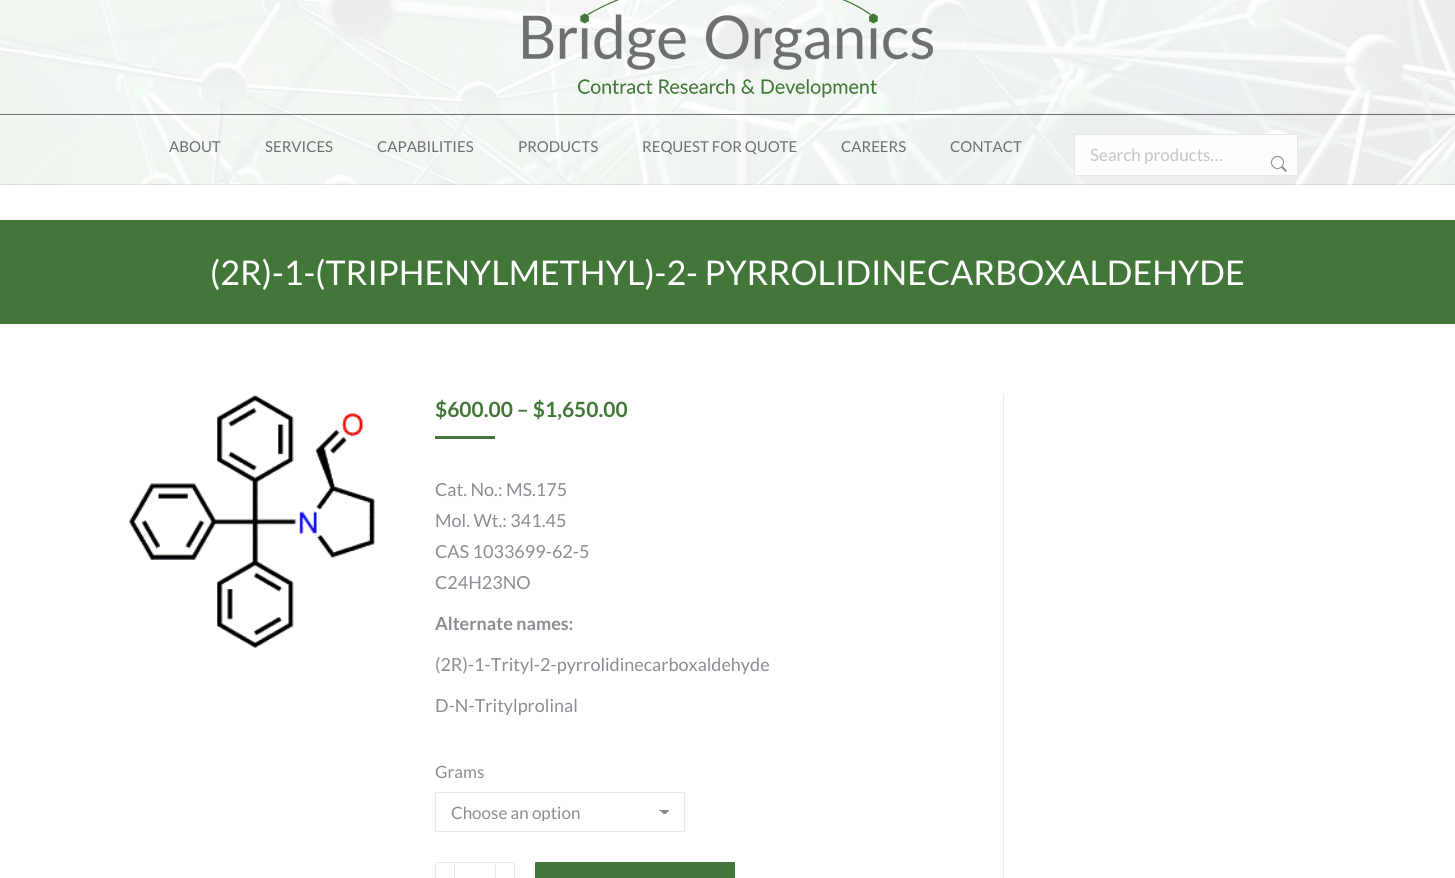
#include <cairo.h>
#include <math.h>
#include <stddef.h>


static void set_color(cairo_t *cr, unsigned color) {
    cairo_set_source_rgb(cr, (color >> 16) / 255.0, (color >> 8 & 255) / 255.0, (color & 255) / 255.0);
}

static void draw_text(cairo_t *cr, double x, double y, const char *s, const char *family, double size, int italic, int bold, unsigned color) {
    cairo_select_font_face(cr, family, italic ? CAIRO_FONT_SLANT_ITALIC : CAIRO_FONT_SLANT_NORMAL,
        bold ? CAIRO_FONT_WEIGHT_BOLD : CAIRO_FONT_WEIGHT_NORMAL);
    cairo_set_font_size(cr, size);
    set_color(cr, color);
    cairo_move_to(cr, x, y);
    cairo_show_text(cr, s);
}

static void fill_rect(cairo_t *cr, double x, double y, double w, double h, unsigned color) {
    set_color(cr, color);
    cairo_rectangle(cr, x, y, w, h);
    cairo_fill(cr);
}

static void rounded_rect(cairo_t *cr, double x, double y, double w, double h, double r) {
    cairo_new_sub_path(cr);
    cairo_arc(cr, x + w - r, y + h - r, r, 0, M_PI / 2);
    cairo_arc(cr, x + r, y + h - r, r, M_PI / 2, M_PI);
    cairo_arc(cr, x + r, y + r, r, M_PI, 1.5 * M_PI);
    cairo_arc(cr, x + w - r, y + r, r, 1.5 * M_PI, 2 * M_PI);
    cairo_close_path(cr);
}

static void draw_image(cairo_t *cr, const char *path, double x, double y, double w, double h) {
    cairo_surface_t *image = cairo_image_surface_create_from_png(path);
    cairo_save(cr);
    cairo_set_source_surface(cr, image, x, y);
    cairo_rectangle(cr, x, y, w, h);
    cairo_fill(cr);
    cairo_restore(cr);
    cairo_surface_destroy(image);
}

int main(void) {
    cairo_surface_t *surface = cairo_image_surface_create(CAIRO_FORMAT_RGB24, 1455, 878);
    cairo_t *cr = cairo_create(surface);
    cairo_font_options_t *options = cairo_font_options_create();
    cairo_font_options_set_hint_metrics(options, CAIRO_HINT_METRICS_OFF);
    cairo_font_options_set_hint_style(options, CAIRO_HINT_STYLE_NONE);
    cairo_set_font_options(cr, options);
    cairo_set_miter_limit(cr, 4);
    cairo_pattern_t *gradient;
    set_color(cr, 0xFFFFFF);
    cairo_paint(cr);
    draw_image(cr, "assets/img1.png", 0, 0, 1455, 185);
    cairo_set_source_rgba(cr, 0.2, 0.2, 0.2, 0.11);
    cairo_rectangle(cr, 0, 184, 1455, 1);
    cairo_fill(cr);
    draw_image(cr, "assets/img2.png", 523, 0, 410, 98);
    fill_rect(cr, 0, 114, 1455, 1, 0x6D6F71);
    draw_text(cr, 169, 152, "ABOUT", "Lato", 15, 0, 0, 0x6D6F71);
    draw_text(cr, 265, 152, "SERVICES", "Lato", 15, 0, 0, 0x6D6F71);
    draw_text(cr, 377, 152, "CAPABILITIES", "Lato", 15, 0, 0, 0x6D6F71);
    draw_text(cr, 518, 152, "PRODUCTS", "Lato", 15, 0, 0, 0x6D6F71);
    draw_text(cr, 642, 152, "REQUEST FOR QUOTE", "Lato", 15, 0, 0, 0x6D6F71);
    draw_text(cr, 841, 152, "CAREERS", "Lato", 15, 0, 0, 0x6D6F71);
    draw_text(cr, 950, 152, "CONTACT", "Lato", 15, 0, 0, 0x6D6F71);
    set_color(cr, 0xFDFDFD);
    rounded_rect(cr, 1074.5, 134.5, 223, 41, 1.5);
    cairo_fill_preserve(cr);
    set_color(cr, 0xE7E7E7);
    cairo_set_line_width(cr, 1);
    cairo_stroke(cr);
    draw_text(cr, 1090, 161, "Search products…", "Lato", 17, 0, 0, 0xC4C5C9);
    draw_image(cr, "assets/img3.png", 1271, 156, 16, 16);
    fill_rect(cr, 0, 220, 1455, 104, 0x427739);
    draw_text(cr, 210, 285, "(2R)-1-(TRIPHENYLMETHYL)-2- PYRROLIDINECARBOXALDEHYDE", "Lato", 34, 0, 0, 0xFFFFFF);
    draw_image(cr, "assets/img4.png", 129, 395, 246, 253);
    draw_text(cr, 435, 417, "$600.00 – $1,650.00", "Lato", 21, 0, 1, 0x427739);
    fill_rect(cr, 435, 436, 60, 3, 0x427739);
    draw_text(cr, 435, 496, "Cat. No.: MS.175", "Lato", 18, 0, 0, 0x8B8D94);
    draw_text(cr, 435, 527, "Mol. Wt.: 341.45", "Lato", 18, 0, 0, 0x8B8D94);
    draw_text(cr, 435, 558, "CAS 1033699-62-5", "Lato", 18, 0, 0, 0x8B8D94);
    draw_text(cr, 435, 589, "C24H23NO", "Lato", 18, 0, 0, 0x8B8D94);
    draw_text(cr, 435, 630, "Alternate names:", "Lato", 18, 0, 1, 0x8B8D94);
    draw_text(cr, 435, 671, "(2R)-1-Trityl-2-pyrrolidinecarboxaldehyde", "Lato", 18, 0, 0, 0x8B8D94);
    draw_text(cr, 435, 712, "D-N-Tritylprolinal", "Lato", 18, 0, 0, 0x8B8D94);
    draw_text(cr, 435, 778, "Grams", "Lato", 17, 0, 0, 0x8B8D94);
    gradient = cairo_pattern_create_linear(664, 810, 669, 815);
    cairo_pattern_add_color_stop_rgba(gradient, 0.5, 0.545, 0.553, 0.58, 1);
    cairo_pattern_add_color_stop_rgba(gradient, 0.5, 0.992, 0.992, 0.992, 1);
    cairo_set_source(cr, gradient);
    cairo_pattern_destroy(gradient);
    cairo_rectangle(cr, 664, 810, 5, 4);
    cairo_fill(cr);
    gradient = cairo_pattern_create_linear(659, 815, 664, 810);
    cairo_pattern_add_color_stop_rgba(gradient, 0.5, 0.992, 0.992, 0.992, 1);
    cairo_pattern_add_color_stop_rgba(gradient, 0.5, 0.545, 0.553, 0.58, 1);
    cairo_set_source(cr, gradient);
    cairo_pattern_destroy(gradient);
    cairo_rectangle(cr, 659, 810, 5, 4);
    cairo_fill(cr);
    rounded_rect(cr, 435.5, 792.5, 249, 39, 1.5);
    set_color(cr, 0xE7E7E7);
    cairo_stroke(cr);
    cairo_save(cr);
    cairo_rectangle(cr, 451, 804, 203, 17);
    cairo_clip(cr);
    draw_text(cr, 451, 819, "Choose an option", "Lato", 17, 0, 0, 0x8B8D94);
    cairo_restore(cr);
    cairo_new_path(cr);
    cairo_move_to(cr, 437, 862.5);
    cairo_line_to(cr, 454.5, 862.5);
    cairo_line_to(cr, 454.5, 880.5);
    cairo_line_to(cr, 437, 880.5);
    cairo_curve_to(cr, 436, 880.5, 435.5, 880, 435.5, 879);
    cairo_line_to(cr, 435.5, 864);
    cairo_curve_to(cr, 435.5, 863, 436, 862.5, 437, 862.5);
    cairo_close_path(cr);
    set_color(cr, 0xE9E9E9);
    cairo_stroke(cr);
    fill_rect(cr, 455, 862, 40, 1, 0xE7E7E7);
    cairo_new_path(cr);
    cairo_move_to(cr, 495.5, 862.5);
    cairo_line_to(cr, 513, 862.5);
    cairo_curve_to(cr, 514, 862.5, 514.5, 863, 514.5, 864);
    cairo_line_to(cr, 514.5, 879);
    cairo_curve_to(cr, 514.5, 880, 514, 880.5, 513, 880.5);
    cairo_line_to(cr, 495.5, 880.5);
    cairo_close_path(cr);
    set_color(cr, 0xE9E9E9);
    cairo_stroke(cr);
    set_color(cr, 0x427739);
    rounded_rect(cr, 535, 862, 200, 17, 1);
    cairo_fill(cr);
    fill_rect(cr, 1003, 394, 1, 484, 0xEBEBEB);
    cairo_surface_write_to_png(surface, "output.png");
    cairo_font_options_destroy(options);
    cairo_destroy(cr);
    cairo_surface_destroy(surface);
    return 0;
}
